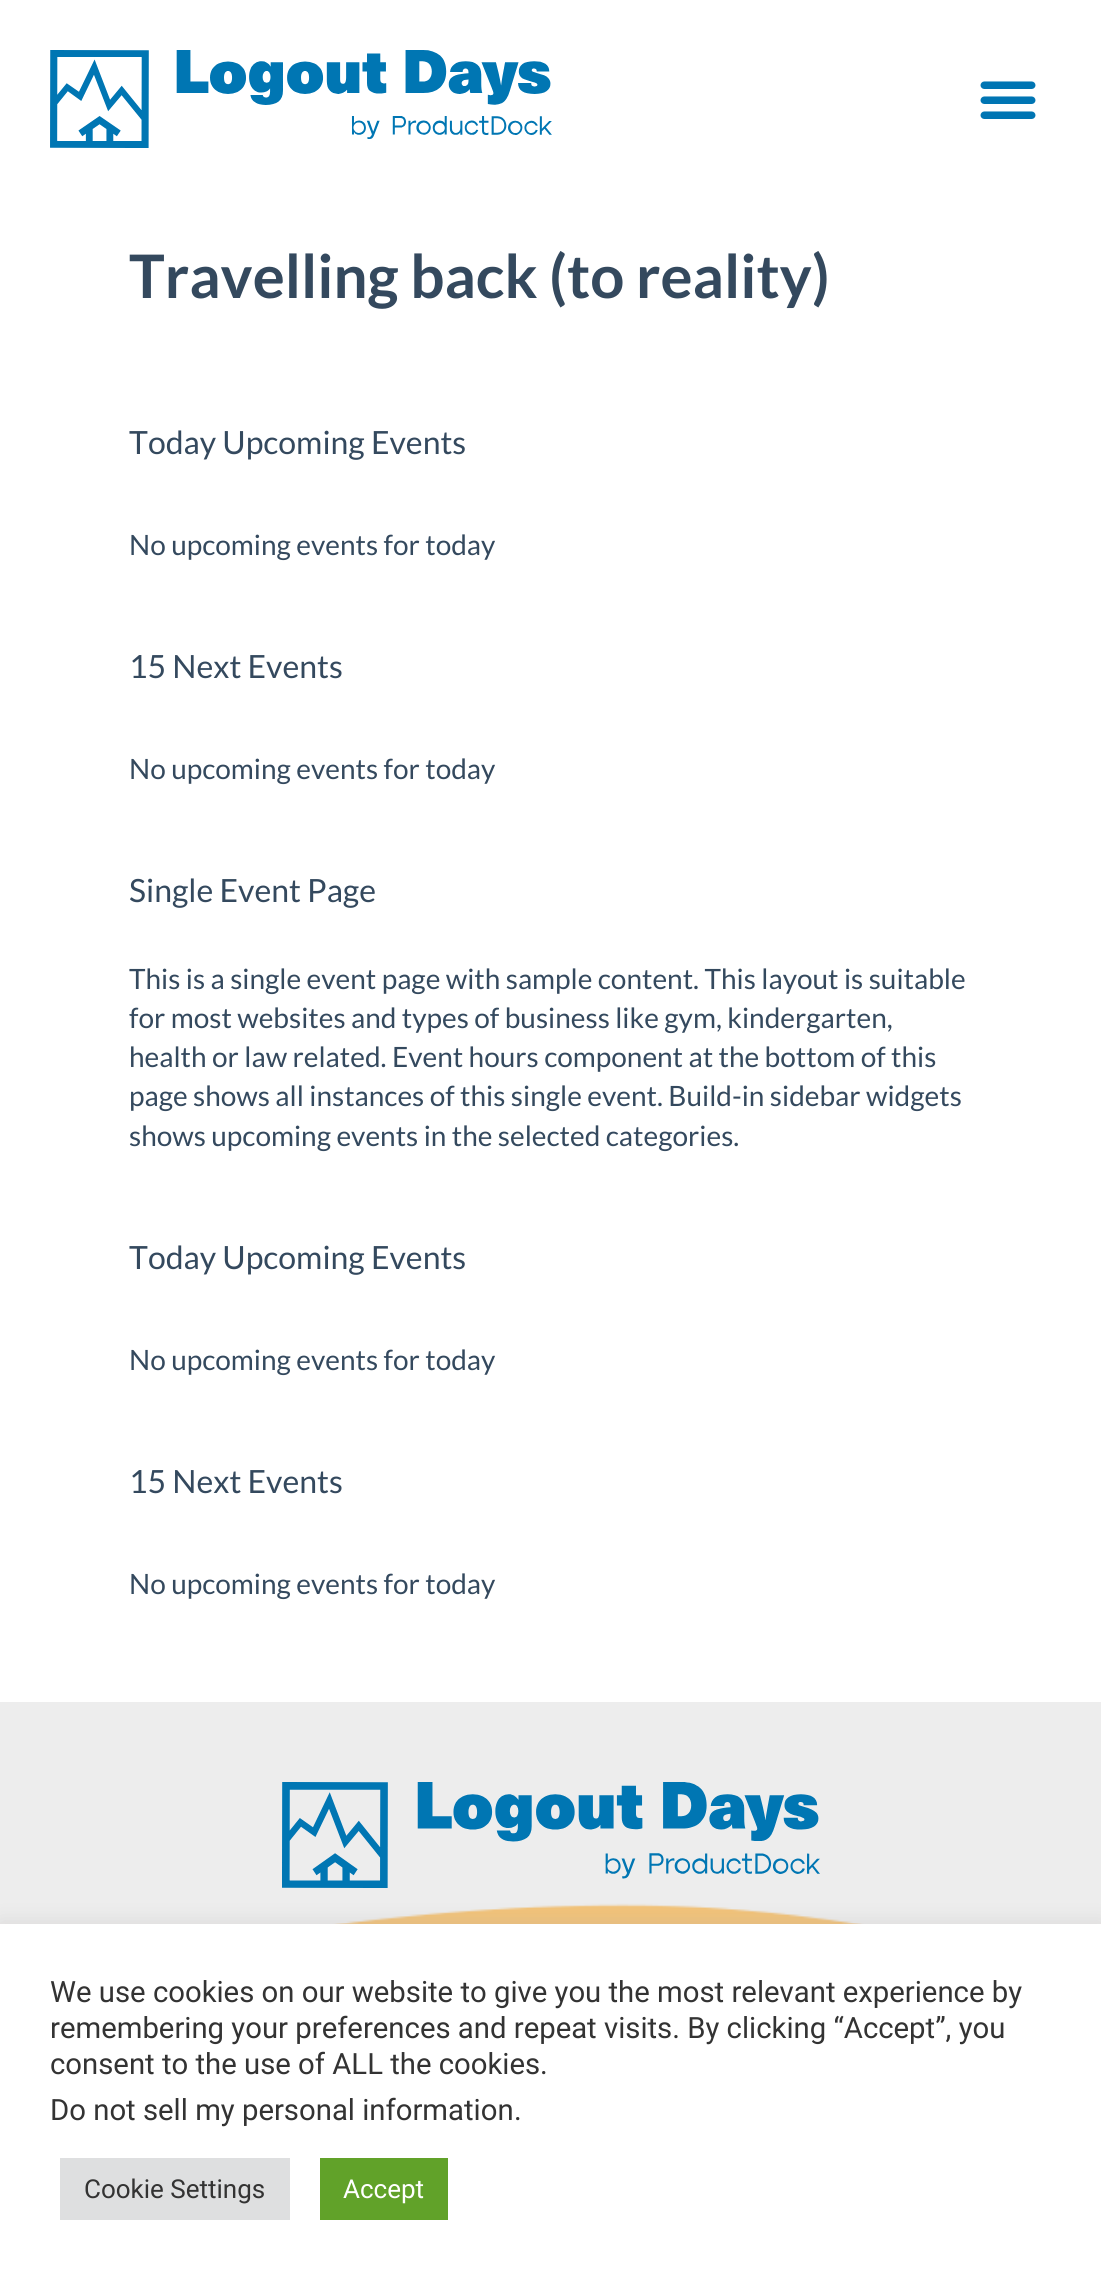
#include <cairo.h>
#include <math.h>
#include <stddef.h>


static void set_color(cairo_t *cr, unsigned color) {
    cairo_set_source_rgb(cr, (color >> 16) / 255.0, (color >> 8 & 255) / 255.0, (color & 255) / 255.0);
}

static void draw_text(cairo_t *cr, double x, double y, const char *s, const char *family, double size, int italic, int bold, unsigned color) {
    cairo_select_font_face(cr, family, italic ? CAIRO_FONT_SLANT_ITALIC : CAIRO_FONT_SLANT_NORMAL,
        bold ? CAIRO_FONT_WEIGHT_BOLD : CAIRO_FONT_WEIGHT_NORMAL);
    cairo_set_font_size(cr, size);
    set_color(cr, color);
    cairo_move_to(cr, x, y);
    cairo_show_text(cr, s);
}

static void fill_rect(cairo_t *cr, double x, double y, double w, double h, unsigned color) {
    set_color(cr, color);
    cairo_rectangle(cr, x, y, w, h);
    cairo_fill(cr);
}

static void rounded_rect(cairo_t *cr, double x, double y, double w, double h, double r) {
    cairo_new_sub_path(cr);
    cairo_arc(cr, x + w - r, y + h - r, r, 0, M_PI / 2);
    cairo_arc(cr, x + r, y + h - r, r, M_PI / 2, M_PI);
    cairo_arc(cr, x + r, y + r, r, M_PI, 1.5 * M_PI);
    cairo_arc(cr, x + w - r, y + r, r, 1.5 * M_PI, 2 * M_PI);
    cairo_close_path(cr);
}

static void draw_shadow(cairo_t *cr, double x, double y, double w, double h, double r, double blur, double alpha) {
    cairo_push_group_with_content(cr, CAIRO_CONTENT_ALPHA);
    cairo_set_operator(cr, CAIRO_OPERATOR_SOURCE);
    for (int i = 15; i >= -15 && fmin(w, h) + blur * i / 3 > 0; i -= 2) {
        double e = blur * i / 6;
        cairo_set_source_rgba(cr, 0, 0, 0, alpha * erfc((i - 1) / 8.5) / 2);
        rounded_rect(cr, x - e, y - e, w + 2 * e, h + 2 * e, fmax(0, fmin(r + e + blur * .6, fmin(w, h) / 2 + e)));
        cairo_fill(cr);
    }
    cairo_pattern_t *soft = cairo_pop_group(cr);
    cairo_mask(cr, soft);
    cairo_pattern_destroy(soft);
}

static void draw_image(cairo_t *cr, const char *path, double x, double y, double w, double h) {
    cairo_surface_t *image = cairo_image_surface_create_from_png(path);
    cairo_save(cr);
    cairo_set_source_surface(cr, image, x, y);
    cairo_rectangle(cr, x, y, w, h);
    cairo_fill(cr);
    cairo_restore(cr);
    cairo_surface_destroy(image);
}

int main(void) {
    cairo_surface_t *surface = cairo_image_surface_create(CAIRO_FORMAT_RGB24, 1101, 2280);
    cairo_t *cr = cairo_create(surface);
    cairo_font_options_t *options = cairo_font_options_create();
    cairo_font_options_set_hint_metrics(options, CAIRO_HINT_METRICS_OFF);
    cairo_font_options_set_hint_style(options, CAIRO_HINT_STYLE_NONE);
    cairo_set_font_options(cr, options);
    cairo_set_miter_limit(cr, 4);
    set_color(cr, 0xFFFFFF);
    cairo_paint(cr);
    draw_image(cr, "assets/img1.png", 50, 50, 502, 98);
    draw_image(cr, "assets/img2.png", 980, 81, 56, 38);
    draw_text(cr, 129, 298, "Travelling back (to reality)", "Lato", 60, 0, 1, 0x34495E);
    draw_text(cr, 129, 454, "Today Upcoming Events", "Lato", 32, 0, 0, 0x34495E);
    draw_text(cr, 129, 555, "No upcoming events for today", "Lato", 28, 0, 0, 0x34495E);
    draw_text(cr, 129, 678, "15 Next Events", "Lato", 32, 0, 0, 0x34495E);
    draw_text(cr, 129, 779, "No upcoming events for today", "Lato", 28, 0, 0, 0x34495E);
    draw_text(cr, 129, 902, "Single Event Page", "Lato", 32, 0, 0, 0x34495E);
    draw_text(cr, 129, 989, "This is a single event page with sample content. This layout is suitable", "Lato", 28, 0, 0, 0x34495E);
    draw_text(cr, 129, 1028, "for most websites and types of business like gym, kindergarten,", "Lato", 28, 0, 0, 0x34495E);
    draw_text(cr, 129, 1067, "health or law related. Event hours component at the bottom of this", "Lato", 28, 0, 0, 0x34495E);
    draw_text(cr, 129, 1106, "page shows all instances of this single event. Build-in sidebar widgets", "Lato", 28, 0, 0, 0x34495E);
    draw_text(cr, 129, 1146, "shows upcoming events in the selected categories.", "Lato", 28, 0, 0, 0x34495E);
    draw_text(cr, 129, 1269, "Today Upcoming Events", "Lato", 32, 0, 0, 0x34495E);
    draw_text(cr, 129, 1370, "No upcoming events for today", "Lato", 28, 0, 0, 0x34495E);
    draw_text(cr, 129, 1493, "15 Next Events", "Lato", 32, 0, 0, 0x34495E);
    draw_text(cr, 129, 1594, "No upcoming events for today", "Lato", 28, 0, 0, 0x34495E);
    draw_image(cr, "assets/img3.png", 0, 1702, 1101, 222);
    draw_image(cr, "assets/img4.png", 282, 1782, 538, 106);
    set_color(cr, 0xACABAB);
    draw_shadow(cr, 0, 1922, 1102, 356, 0, 10, 0.3);
    fill_rect(cr, 0, 1924, 1101, 356, 0xFFFFFF);
    draw_text(cr, 50, 2002, "We use cookies on our website to give you the most relevant experience by", "Roboto", 29.3, 0, 0, 0x333333);
    draw_text(cr, 50, 2038, "remembering your preferences and repeat visits. By clicking “Accept”, you", "Roboto", 29.3, 0, 0, 0x333333);
    draw_text(cr, 50, 2074, "consent to the use of ALL the cookies.", "Roboto", 29.3, 0, 0, 0x333333);
    draw_text(cr, 50, 2120, "Do not sell my personal information", "Roboto", 29.3, 0, 0, 0x333333);
    draw_text(cr, 514, 2120, ".", "Roboto", 29.3, 0, 0, 0x333333);
    fill_rect(cr, 60, 2158, 230, 62, 0xDEDFE0);
    draw_text(cr, 84, 2198, "Cookie Settings", "Roboto", 26, 0, 0, 0x333333);
    fill_rect(cr, 320, 2158, 128, 62, 0x61A229);
    draw_text(cr, 343, 2198, "Accept", "Roboto", 26, 0, 0, 0xFFFFFF);
    cairo_surface_write_to_png(surface, "output.png");
    cairo_font_options_destroy(options);
    cairo_destroy(cr);
    cairo_surface_destroy(surface);
    return 0;
}
